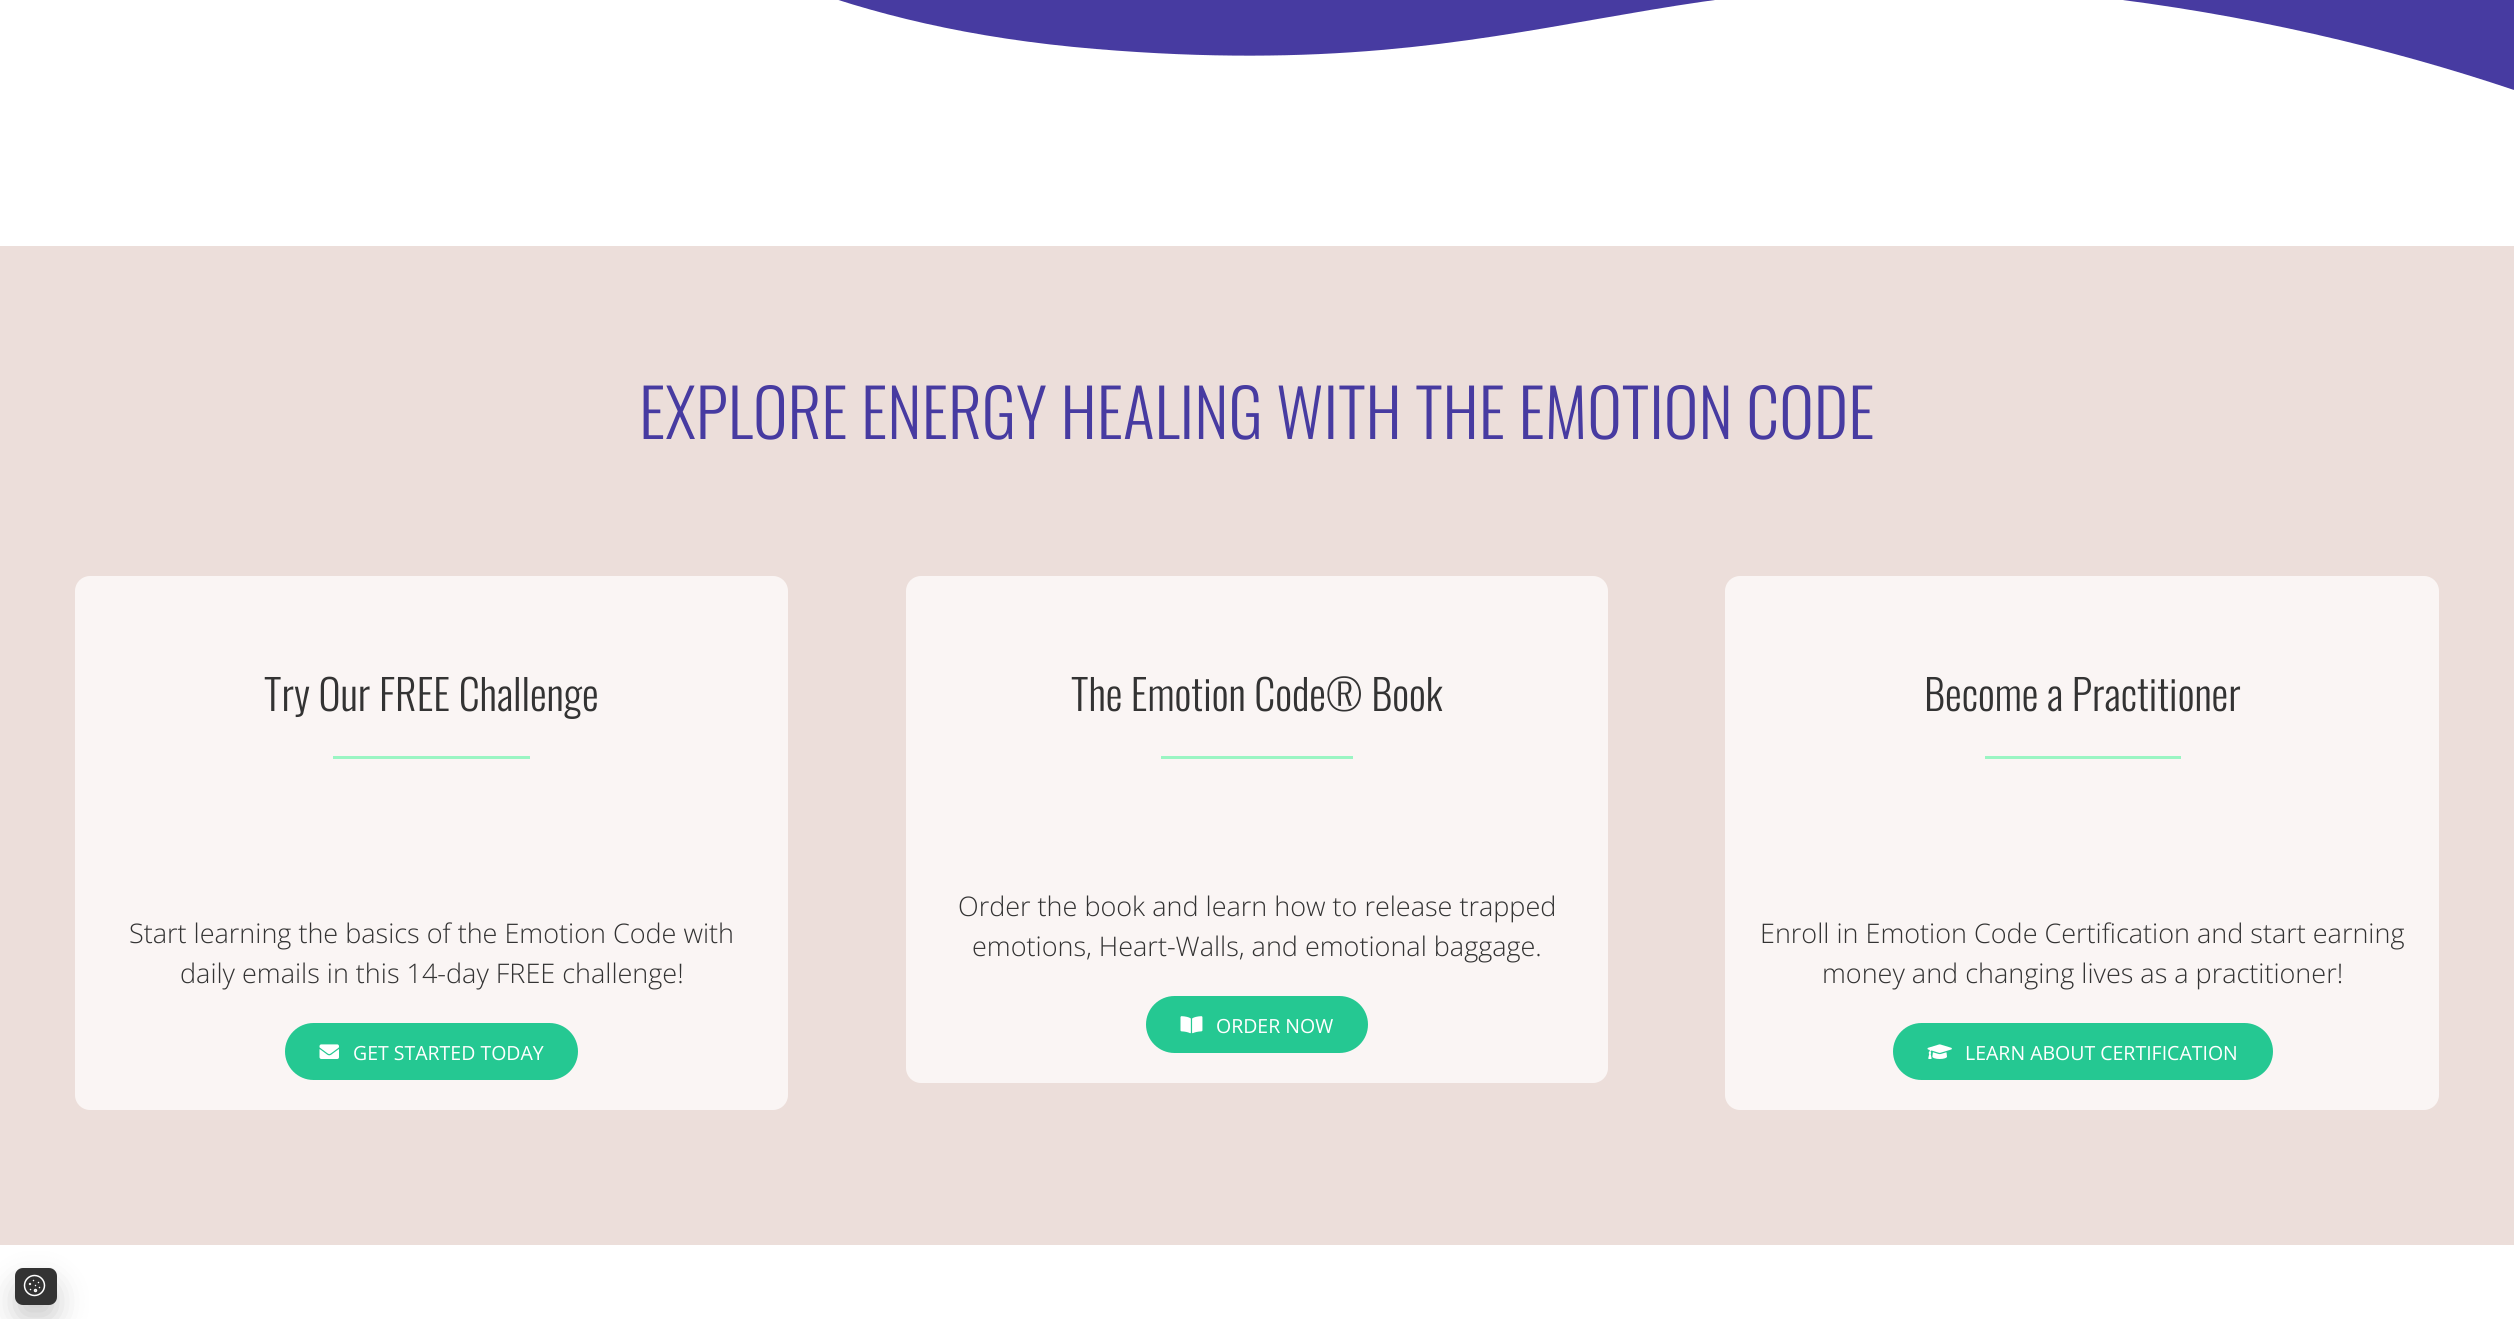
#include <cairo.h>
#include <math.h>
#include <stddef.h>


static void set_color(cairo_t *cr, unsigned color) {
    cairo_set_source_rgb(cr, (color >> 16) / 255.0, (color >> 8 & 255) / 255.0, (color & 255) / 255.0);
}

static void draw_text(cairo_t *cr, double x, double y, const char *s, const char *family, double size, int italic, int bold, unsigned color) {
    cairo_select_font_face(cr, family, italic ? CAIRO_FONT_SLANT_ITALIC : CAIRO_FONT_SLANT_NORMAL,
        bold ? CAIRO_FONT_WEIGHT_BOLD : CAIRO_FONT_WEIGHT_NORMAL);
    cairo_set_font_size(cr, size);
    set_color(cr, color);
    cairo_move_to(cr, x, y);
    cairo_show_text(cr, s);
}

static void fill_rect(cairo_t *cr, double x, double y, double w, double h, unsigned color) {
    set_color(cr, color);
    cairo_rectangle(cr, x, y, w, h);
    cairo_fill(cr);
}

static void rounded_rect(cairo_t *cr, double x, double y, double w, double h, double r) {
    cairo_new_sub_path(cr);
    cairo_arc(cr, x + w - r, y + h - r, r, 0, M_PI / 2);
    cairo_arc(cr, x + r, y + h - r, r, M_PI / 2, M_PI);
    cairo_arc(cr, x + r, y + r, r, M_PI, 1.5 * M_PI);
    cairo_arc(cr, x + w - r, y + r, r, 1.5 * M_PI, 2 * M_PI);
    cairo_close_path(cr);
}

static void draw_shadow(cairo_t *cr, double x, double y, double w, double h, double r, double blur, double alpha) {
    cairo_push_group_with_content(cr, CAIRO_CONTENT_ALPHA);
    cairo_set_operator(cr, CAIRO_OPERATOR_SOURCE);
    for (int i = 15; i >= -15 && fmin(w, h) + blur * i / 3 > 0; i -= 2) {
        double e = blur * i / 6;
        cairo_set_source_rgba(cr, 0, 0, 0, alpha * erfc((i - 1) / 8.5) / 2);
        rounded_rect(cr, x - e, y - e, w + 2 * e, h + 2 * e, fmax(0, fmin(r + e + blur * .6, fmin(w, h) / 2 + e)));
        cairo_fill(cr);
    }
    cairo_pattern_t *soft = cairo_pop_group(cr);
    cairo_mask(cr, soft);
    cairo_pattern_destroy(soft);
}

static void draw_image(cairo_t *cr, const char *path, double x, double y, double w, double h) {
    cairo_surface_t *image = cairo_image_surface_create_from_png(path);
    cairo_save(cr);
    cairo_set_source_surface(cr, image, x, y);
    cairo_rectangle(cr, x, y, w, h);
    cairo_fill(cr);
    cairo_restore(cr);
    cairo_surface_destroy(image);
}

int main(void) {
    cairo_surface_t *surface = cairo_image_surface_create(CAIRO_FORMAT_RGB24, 2514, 1319);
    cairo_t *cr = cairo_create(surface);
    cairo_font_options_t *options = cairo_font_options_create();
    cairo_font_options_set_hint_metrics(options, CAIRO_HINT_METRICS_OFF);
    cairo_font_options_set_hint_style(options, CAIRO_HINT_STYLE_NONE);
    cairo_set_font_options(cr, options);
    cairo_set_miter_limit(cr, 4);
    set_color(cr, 0xFFFFFF);
    cairo_paint(cr);
    fill_rect(cr, 838, 0, 1676, 90, 0x473BA1);
    cairo_save(cr);
    cairo_rectangle(cr, 0, 0, 2514, 96);
    cairo_clip(cr);
    set_color(cr, 0xFFFFFF);
    cairo_new_path(cr);
    cairo_move_to(cr, 0, 97);
    cairo_line_to(cr, 2514, 97);
    cairo_line_to(cr, 2514, 90);
    cairo_curve_to(cr, 2389, 48, 2247, 14, 2090, -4);
    cairo_curve_to(cr, 1652, -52, 1550, 87, 1096, 49);
    cairo_curve_to(cr, 589, 7, 536, -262, 29, -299);
    cairo_line_to(cr, 0, -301);
    cairo_close_path(cr);
    cairo_fill(cr);
    cairo_restore(cr);
    fill_rect(cr, 0, 246, 2514, 999, 0xECDEDA);
    draw_text(cr, 639, 439, "EXPLORE ENERGY HEALING WITH THE EMOTION CODE", "Oswald Light", 66, 0, 0, 0x473BA1);
    set_color(cr, 0xFAF5F4);
    rounded_rect(cr, 75, 576, 713, 534, 15);
    cairo_fill(cr);
    draw_text(cr, 264, 711, "Try Our FREE Challenge", "Oswald Light", 42, 0, 0, 0x333333);
    fill_rect(cr, 333, 756, 197, 3, 0x9AF5C3);
    draw_text(cr, 129, 943, "Start learning the basics of the Emotion Code with", "Open Sans Light", 27, 0, 0, 0x333333);
    draw_text(cr, 180, 983, "daily emails in this 14-day FREE challenge!", "Open Sans Light", 27, 0, 0, 0x333333);
    set_color(cr, 0x25C892);
    rounded_rect(cr, 285, 1023, 293, 57, 28.5);
    cairo_fill(cr);
    draw_image(cr, "assets/img1.png", 319, 1044, 20, 15);
    draw_text(cr, 353, 1060, "GET STARTED TODAY", "Open Sans", 19.5, 0, 0, 0xFFFFFF);
    set_color(cr, 0xFAF5F4);
    rounded_rect(cr, 906, 576, 702, 507, 15);
    cairo_fill(cr);
    draw_text(cr, 1071, 711, "The Emotion Code® Book", "Oswald Light", 42, 0, 0, 0x333333);
    fill_rect(cr, 1161, 756, 192, 3, 0x9AF5C3);
    draw_text(cr, 958, 916, "Order the book and learn how to release trapped", "Open Sans Light", 27, 0, 0, 0x333333);
    draw_text(cr, 972, 956, "emotions, Heart-Walls, and emotional baggage.", "Open Sans Light", 27, 0, 0, 0x333333);
    set_color(cr, 0x25C892);
    rounded_rect(cr, 1146, 996, 222, 57, 28.5);
    cairo_fill(cr);
    draw_image(cr, "assets/img2.png", 1180, 1016, 23, 18);
    draw_text(cr, 1216, 1033, "ORDER NOW", "Open Sans", 19.5, 0, 0, 0xFFFFFF);
    set_color(cr, 0xFAF5F4);
    rounded_rect(cr, 1725, 576, 714, 534, 15);
    cairo_fill(cr);
    draw_text(cr, 1924, 711, "Become a Practitioner", "Oswald Light", 42, 0, 0, 0x333333);
    fill_rect(cr, 1985, 756, 196, 3, 0x9AF5C3);
    draw_text(cr, 1760, 943, "Enroll in Emotion Code Certification and start earning", "Open Sans Light", 27, 0, 0, 0x333333);
    draw_text(cr, 1822, 983, "money and changing lives as a practitioner!", "Open Sans Light", 27, 0, 0, 0x333333);
    set_color(cr, 0x25C892);
    rounded_rect(cr, 1893, 1023, 380, 57, 28.5);
    cairo_fill(cr);
    draw_image(cr, "assets/img3.png", 1927, 1044, 25, 15);
    draw_text(cr, 1965, 1060, "LEARN ABOUT CERTIFICATION", "Open Sans", 19.5, 0, 0, 0xFFFFFF);
    set_color(cr, 0x000000);
    draw_shadow(cr, 15, 1283, 42, 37, 8, 15, 0.2);
    set_color(cr, 0x333333);
    rounded_rect(cr, 15, 1268, 42, 37, 8);
    cairo_fill(cr);
    draw_image(cr, "assets/img4.png", 23, 1274, 23, 23);
    cairo_surface_write_to_png(surface, "output.png");
    cairo_font_options_destroy(options);
    cairo_destroy(cr);
    cairo_surface_destroy(surface);
    return 0;
}
